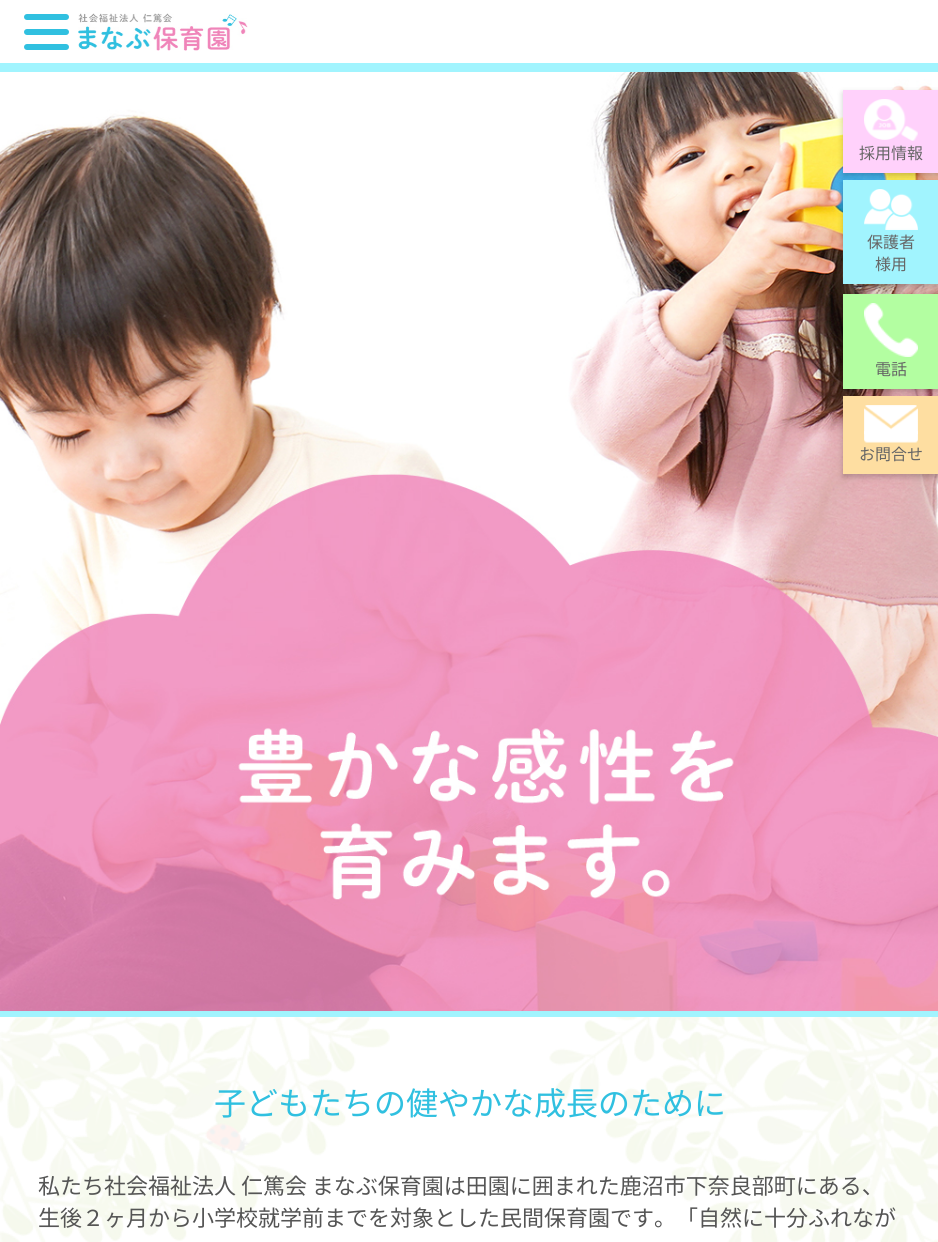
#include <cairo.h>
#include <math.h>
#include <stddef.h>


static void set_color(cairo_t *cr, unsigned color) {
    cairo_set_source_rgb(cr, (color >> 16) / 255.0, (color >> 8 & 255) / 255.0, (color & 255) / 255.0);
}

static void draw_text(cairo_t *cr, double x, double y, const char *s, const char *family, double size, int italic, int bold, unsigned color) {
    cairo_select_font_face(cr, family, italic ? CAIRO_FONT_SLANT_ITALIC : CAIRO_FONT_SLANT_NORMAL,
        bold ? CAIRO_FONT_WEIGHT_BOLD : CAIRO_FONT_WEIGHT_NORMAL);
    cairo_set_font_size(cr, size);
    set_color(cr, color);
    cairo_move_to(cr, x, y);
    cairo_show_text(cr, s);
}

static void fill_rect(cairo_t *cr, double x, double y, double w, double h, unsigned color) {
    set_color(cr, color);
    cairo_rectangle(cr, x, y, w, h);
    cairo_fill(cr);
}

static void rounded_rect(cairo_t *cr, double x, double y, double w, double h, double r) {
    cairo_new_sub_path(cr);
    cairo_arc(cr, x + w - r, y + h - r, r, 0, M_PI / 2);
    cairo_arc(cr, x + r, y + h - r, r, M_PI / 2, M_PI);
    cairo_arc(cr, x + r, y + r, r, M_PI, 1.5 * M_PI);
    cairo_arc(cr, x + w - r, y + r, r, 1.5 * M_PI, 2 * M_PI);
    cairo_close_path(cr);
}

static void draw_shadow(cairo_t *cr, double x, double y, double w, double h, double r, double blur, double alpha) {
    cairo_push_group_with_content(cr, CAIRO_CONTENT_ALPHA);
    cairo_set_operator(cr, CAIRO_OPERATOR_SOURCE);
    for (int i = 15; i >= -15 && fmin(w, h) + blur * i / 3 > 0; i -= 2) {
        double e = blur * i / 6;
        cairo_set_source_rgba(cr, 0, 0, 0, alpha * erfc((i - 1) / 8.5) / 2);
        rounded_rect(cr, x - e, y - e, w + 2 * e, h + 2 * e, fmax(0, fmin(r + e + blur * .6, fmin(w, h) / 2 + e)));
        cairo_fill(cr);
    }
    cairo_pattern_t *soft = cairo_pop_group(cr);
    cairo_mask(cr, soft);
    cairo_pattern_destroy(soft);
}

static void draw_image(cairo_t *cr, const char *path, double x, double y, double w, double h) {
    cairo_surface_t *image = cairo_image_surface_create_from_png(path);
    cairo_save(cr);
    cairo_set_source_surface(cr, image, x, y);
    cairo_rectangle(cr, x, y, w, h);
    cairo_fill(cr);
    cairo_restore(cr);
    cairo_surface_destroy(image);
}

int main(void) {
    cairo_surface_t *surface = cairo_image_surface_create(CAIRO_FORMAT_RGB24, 938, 1242);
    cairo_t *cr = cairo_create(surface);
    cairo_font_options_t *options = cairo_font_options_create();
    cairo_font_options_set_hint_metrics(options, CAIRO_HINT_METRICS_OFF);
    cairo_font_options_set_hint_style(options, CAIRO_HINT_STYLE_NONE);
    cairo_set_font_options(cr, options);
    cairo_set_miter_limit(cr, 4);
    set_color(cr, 0xFFFFFF);
    cairo_paint(cr);
    set_color(cr, 0x30C0E0);
    rounded_rect(cr, 24, 29, 45, 6, 3);
    cairo_fill(cr);
    rounded_rect(cr, 24, 14, 45, 6, 3);
    cairo_fill(cr);
    rounded_rect(cr, 24, 44, 45, 6, 3);
    cairo_fill(cr);
    draw_image(cr, "assets/img1.png", 78, 13, 170, 38);
    draw_image(cr, "assets/img6.png", 0, 72, 938, 939);
    set_color(cr, 0x000000);
    draw_shadow(cr, 843, 93, 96, 83, 0, 3, 0.2);
    fill_rect(cr, 843, 90, 95, 83, 0xFFD1FB);
    draw_image(cr, "assets/img2.png", 864, 99, 54, 42);
    draw_text(cr, 859, 159, "採用情報", "Noto Sans JP Thin", 16, 0, 0, 0x666666);
    set_color(cr, 0x000000);
    draw_shadow(cr, 843, 183, 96, 104, 0, 3, 0.2);
    fill_rect(cr, 843, 180, 95, 104, 0xA1F4FE);
    draw_image(cr, "assets/img3.png", 864, 189, 54, 41);
    draw_text(cr, 867, 248, "保護者", "Noto Sans JP Thin", 16, 0, 0, 0x666666);
    draw_text(cr, 875, 270, "様用", "Noto Sans JP Thin", 16, 0, 0, 0x666666);
    set_color(cr, 0x000000);
    draw_shadow(cr, 843, 297, 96, 95, 0, 3, 0.2);
    fill_rect(cr, 843, 294, 95, 95, 0xB3FEA1);
    draw_image(cr, "assets/img4.png", 864, 303, 54, 54);
    draw_text(cr, 875, 375, "電話", "Noto Sans JP Thin", 16, 0, 0, 0x666666);
    set_color(cr, 0x000000);
    draw_shadow(cr, 843, 399, 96, 78, 0, 3, 0.2);
    fill_rect(cr, 843, 396, 95, 78, 0xFEDEA1);
    draw_image(cr, "assets/img5.png", 864, 405, 54, 38);
    draw_text(cr, 859, 460, "お問合せ", "Noto Sans JP Thin", 16, 0, 0, 0x666666);
    fill_rect(cr, 0, 63, 938, 9, 0xA1F4FE);
    fill_rect(cr, 0, 1011, 938, 6, 0xA1F4FE);
    draw_image(cr, "assets/img7.png", 0, 1017, 390, 225);
    draw_image(cr, "assets/img8.png", 549, 1017, 389, 225);
    draw_text(cr, 214, 1115, "子どもたちの健やかな成長のために", "Noto Sans JP Thin", 32, 0, 0, 0x30C0E0);
    draw_text(cr, 38, 1194, "私たち社会福祉法人 仁篤会 まなぶ保育園は田園に囲まれた鹿沼市下奈良部町にある、", "Noto Sans JP Thin", 22, 0, 0, 0x555555);
    draw_text(cr, 38, 1226, "生後２ヶ月から小学校就学前までを対象とした民間保育園です。「自然に十分ふれなが", "Noto Sans JP Thin", 22, 0, 0, 0x555555);
    cairo_surface_write_to_png(surface, "output.png");
    cairo_font_options_destroy(options);
    cairo_destroy(cr);
    cairo_surface_destroy(surface);
    return 0;
}
